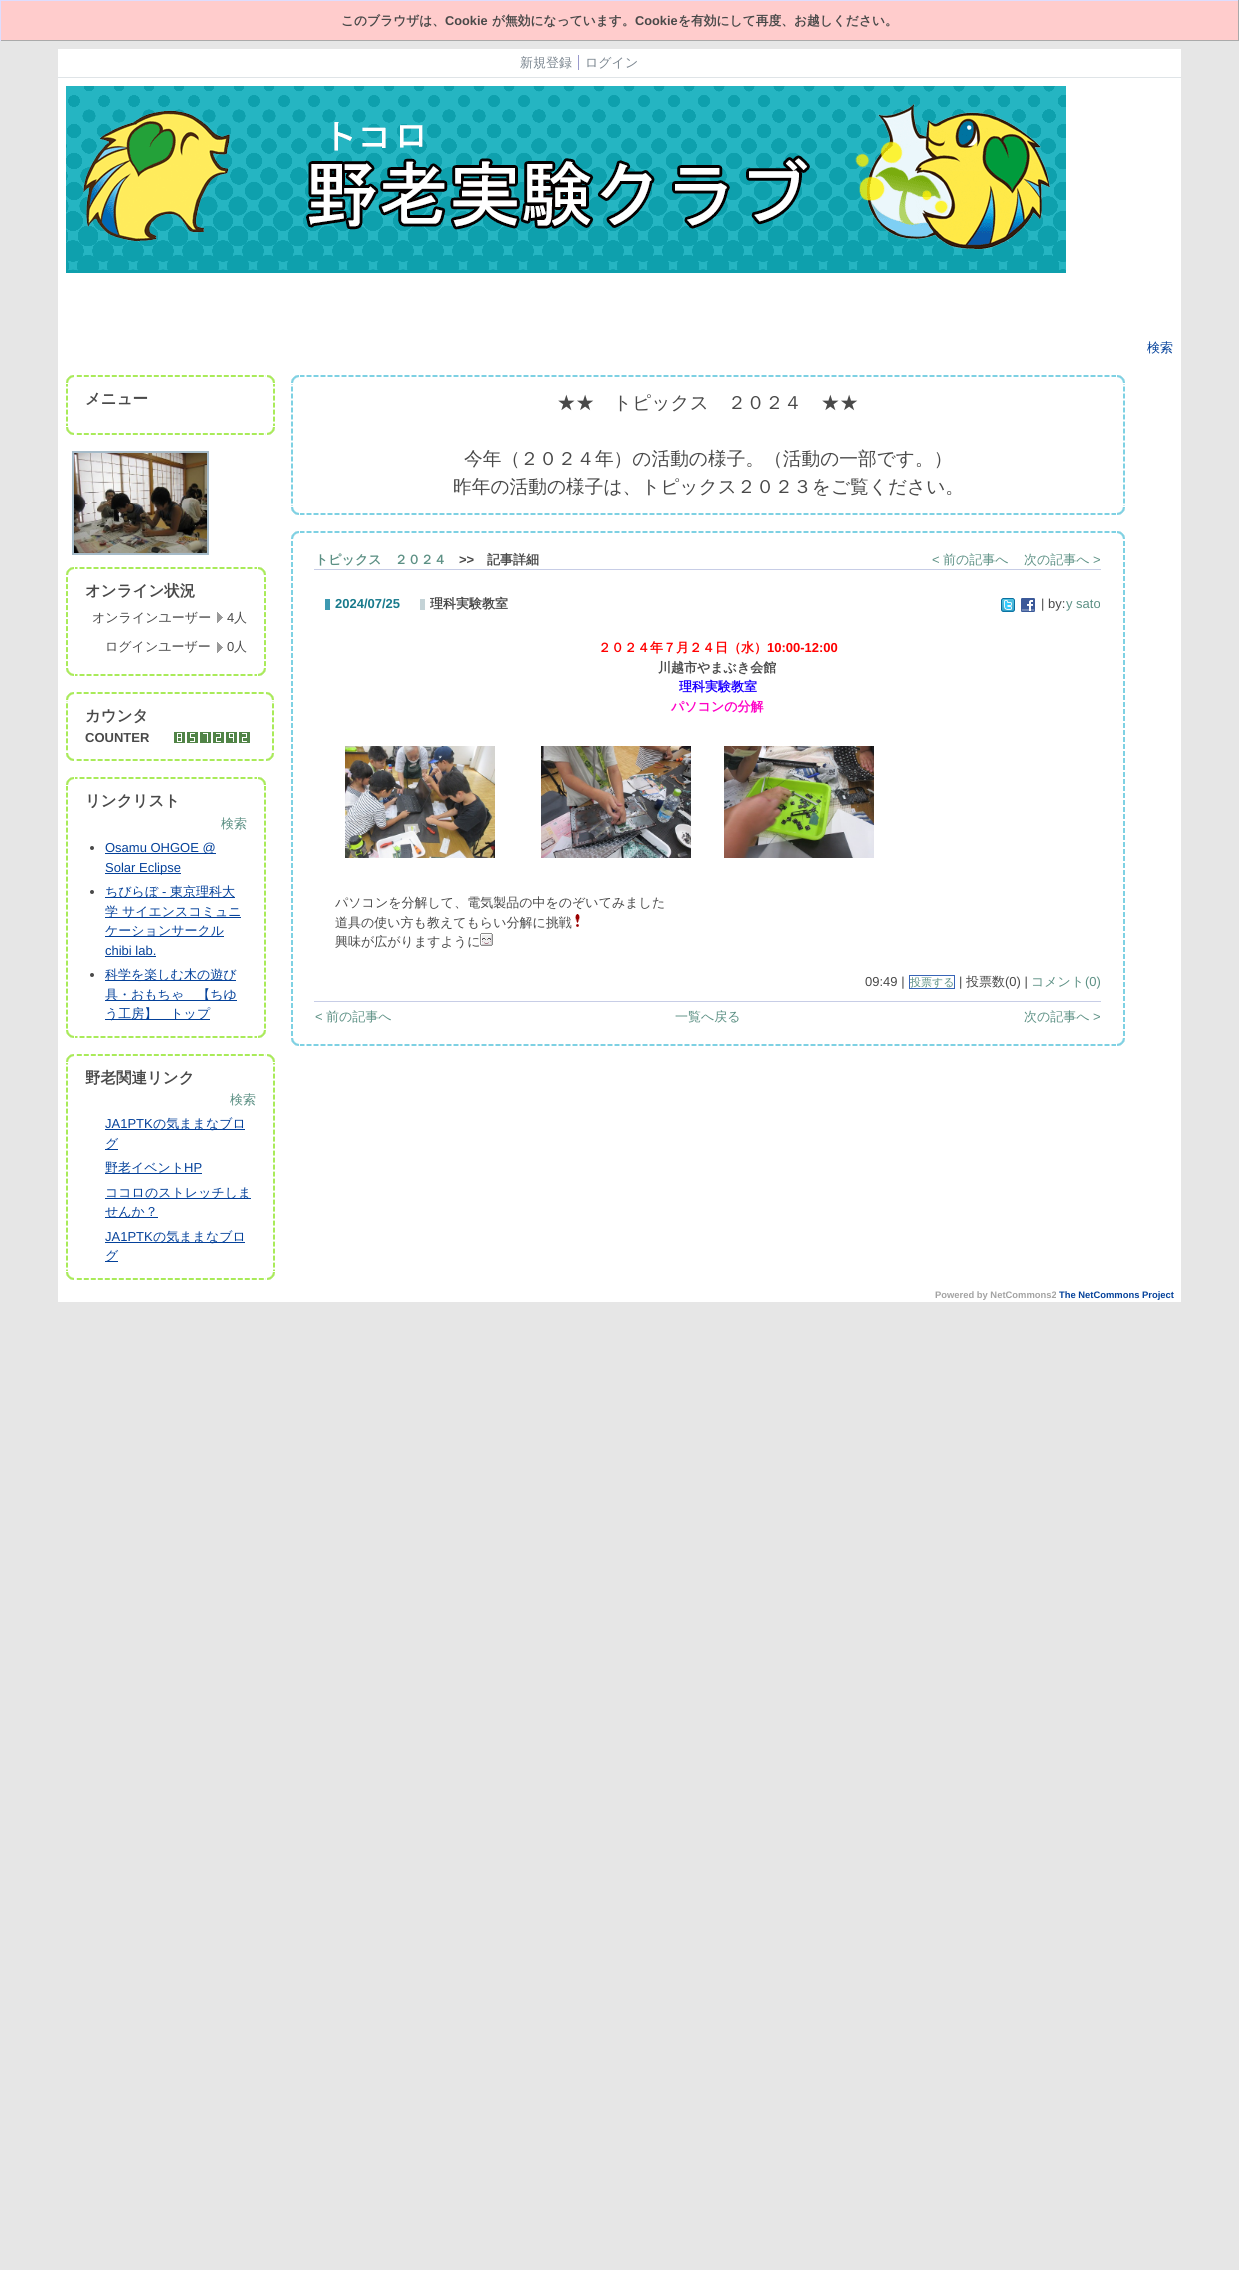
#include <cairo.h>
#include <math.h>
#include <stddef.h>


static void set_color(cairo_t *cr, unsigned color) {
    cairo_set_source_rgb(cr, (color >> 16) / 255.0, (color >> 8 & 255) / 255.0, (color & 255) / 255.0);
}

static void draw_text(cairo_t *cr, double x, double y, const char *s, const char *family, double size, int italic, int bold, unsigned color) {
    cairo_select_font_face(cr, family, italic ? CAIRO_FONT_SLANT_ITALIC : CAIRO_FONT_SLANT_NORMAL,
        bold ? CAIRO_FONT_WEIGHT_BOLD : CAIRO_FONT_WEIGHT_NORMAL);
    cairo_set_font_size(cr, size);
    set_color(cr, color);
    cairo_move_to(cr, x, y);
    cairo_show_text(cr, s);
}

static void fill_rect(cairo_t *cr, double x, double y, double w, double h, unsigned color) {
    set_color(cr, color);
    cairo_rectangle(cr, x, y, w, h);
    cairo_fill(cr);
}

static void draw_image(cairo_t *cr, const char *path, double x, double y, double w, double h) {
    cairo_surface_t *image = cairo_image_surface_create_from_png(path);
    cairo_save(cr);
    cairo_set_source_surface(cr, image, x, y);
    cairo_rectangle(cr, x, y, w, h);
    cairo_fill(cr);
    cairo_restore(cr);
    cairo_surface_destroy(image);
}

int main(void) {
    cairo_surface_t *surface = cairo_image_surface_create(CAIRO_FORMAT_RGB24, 1239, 2270);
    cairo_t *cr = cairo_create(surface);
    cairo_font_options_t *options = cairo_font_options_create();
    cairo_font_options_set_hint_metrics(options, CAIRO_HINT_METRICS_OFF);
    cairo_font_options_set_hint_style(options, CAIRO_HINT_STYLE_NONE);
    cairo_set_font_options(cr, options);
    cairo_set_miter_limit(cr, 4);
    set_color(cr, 0xE6E6E6);
    cairo_paint(cr);
    fill_rect(cr, 1, 1, 1237, 39, 0xFFCCCC);
    fill_rect(cr, 0, 0, 1239, 1, 0xDDDDFF);
    fill_rect(cr, 1238, 0, 1, 41, 0xAAAAAA);
    fill_rect(cr, 0, 40, 1239, 1, 0xAAAAAA);
    fill_rect(cr, 0, 0, 1, 41, 0xDDDDFF);
    draw_text(cr, 341, 25, "このブラウザは、", "WenQuanYi Zen Hei", 12.75, 0, 1, 0x494949);
    draw_text(cr, 445, 25, "Cookie", "Liberation Sans", 12.75, 0, 1, 0x494949);
    draw_text(cr, 492, 25, "が無効になっています。", "WenQuanYi Zen Hei", 12.75, 0, 1, 0x494949);
    draw_text(cr, 635, 25, "Cookie", "Liberation Sans", 12.75, 0, 1, 0x494949);
    draw_text(cr, 678, 25, "を有効にして再度、お越しください。", "WenQuanYi Zen Hei", 12.75, 0, 1, 0x494949);
    fill_rect(cr, 58, 49, 1123, 28, 0xFFFFFF);
    fill_rect(cr, 58, 77, 1123, 1, 0xDFE4E7);
    draw_text(cr, 520, 67, "新規登録", "WenQuanYi Zen Hei Medium", 13, 0, 0, 0x7A858F);
    draw_text(cr, 585, 67, "ログイン", "WenQuanYi Zen Hei Medium", 13, 0, 0, 0x7A858F);
    fill_rect(cr, 578, 55, 1, 15, 0x9999CC);
    fill_rect(cr, 58, 78, 1123, 289, 0xFFFFFF);
    draw_image(cr, "assets/img1.png", 66, 86, 1000, 187);
    draw_text(cr, 1147, 352, "検索", "WenQuanYi Zen Hei Medium", 13, 0, 0, 0x04419A);
    fill_rect(cr, 58, 367, 1123, 935, 0xFFFFFF);
    draw_image(cr, "assets/img2.png", 66, 375, 8, 8);
    draw_image(cr, "assets/img3.png", 76, 375, 190, 2);
    draw_image(cr, "assets/img4.png", 267, 375, 8, 8);
    draw_image(cr, "assets/img5.png", 66, 384, 2, 42);
    draw_text(cr, 85, 404, "メニュー", "WenQuanYi Zen Hei", 15.5, 0, 1, 0x494949);
    draw_image(cr, "assets/img5.png", 273, 384, 2, 42);
    draw_image(cr, "assets/img6.png", 66, 427, 8, 8);
    draw_image(cr, "assets/img3.png", 76, 433, 190, 2);
    draw_image(cr, "assets/img7.png", 267, 427, 8, 8);
    cairo_rectangle(cr, 73, 452, 135, 102);
    set_color(cr, 0xA5BBC9);
    cairo_stroke(cr);
    draw_image(cr, "assets/img8.png", 74, 453, 133, 100);
    draw_image(cr, "assets/img2.png", 66, 567, 8, 8);
    draw_image(cr, "assets/img9.png", 75, 567, 182, 2);
    draw_image(cr, "assets/img4.png", 258, 567, 8, 8);
    draw_image(cr, "assets/img10.png", 66, 577, 2, 90);
    draw_text(cr, 85, 596, "オンライン状況", "WenQuanYi Zen Hei", 15.5, 0, 1, 0x494949);
    draw_image(cr, "assets/img11.png", 217, 612, 6, 11);
    draw_text(cr, 92, 622, "オンラインユーザー", "WenQuanYi Zen Hei Medium", 13, 0, 0, 0x494949);
    draw_text(cr, 227, 622, "4", "Liberation Sans", 13, 0, 0, 0x494949);
    draw_text(cr, 234, 622, "人", "WenQuanYi Zen Hei Medium", 13, 0, 0, 0x494949);
    draw_image(cr, "assets/img11.png", 217, 642, 6, 11);
    draw_text(cr, 105, 651, "ログインユーザー", "WenQuanYi Zen Hei Medium", 13, 0, 0, 0x494949);
    draw_text(cr, 227, 651, "0", "Liberation Sans", 13, 0, 0, 0x494949);
    draw_text(cr, 234, 651, "人", "WenQuanYi Zen Hei Medium", 13, 0, 0, 0x494949);
    draw_image(cr, "assets/img10.png", 264, 577, 2, 90);
    draw_image(cr, "assets/img6.png", 66, 668, 8, 8);
    draw_image(cr, "assets/img9.png", 75, 674, 182, 2);
    draw_image(cr, "assets/img7.png", 258, 668, 8, 8);
    draw_image(cr, "assets/img2.png", 66, 692, 8, 8);
    draw_image(cr, "assets/img12.png", 76, 692, 188, 2);
    draw_image(cr, "assets/img4.png", 266, 692, 8, 8);
    draw_image(cr, "assets/img13.png", 66, 701, 2, 50);
    draw_text(cr, 85, 721, "カウンタ", "WenQuanYi Zen Hei", 15.5, 0, 1, 0x494949);
    draw_text(cr, 85, 742, "COUNTER", "Liberation Sans", 13, 0, 1, 0x494949);
    draw_image(cr, "assets/img14.png", 174, 732, 11, 11);
    draw_image(cr, "assets/img15.png", 187, 732, 11, 11);
    draw_image(cr, "assets/img16.png", 200, 732, 11, 11);
    draw_image(cr, "assets/img17.png", 213, 732, 11, 11);
    draw_image(cr, "assets/img18.png", 226, 732, 11, 11);
    draw_image(cr, "assets/img17.png", 239, 732, 11, 11);
    draw_image(cr, "assets/img13.png", 272, 701, 2, 50);
    draw_image(cr, "assets/img6.png", 66, 753, 8, 8);
    draw_image(cr, "assets/img12.png", 76, 759, 188, 2);
    draw_image(cr, "assets/img7.png", 266, 753, 8, 8);
    draw_image(cr, "assets/img2.png", 66, 777, 8, 8);
    draw_image(cr, "assets/img9.png", 75, 777, 182, 2);
    draw_image(cr, "assets/img4.png", 258, 777, 8, 8);
    draw_image(cr, "assets/img19.png", 66, 786, 2, 243);
    draw_text(cr, 85, 806, "リンクリスト", "WenQuanYi Zen Hei", 15.5, 0, 1, 0x494949);
    draw_text(cr, 221, 828, "検索", "WenQuanYi Zen Hei Medium", 13, 0, 0, 0x5C9084);
    set_color(cr, 0x494949);
    cairo_new_path(cr);
    cairo_arc(cr, 92, 848, 2, 0, 2 * M_PI);
    cairo_fill(cr);
    fill_rect(cr, 105, 853, 111, 1, 0x04419A);
    draw_text(cr, 105, 852, "Osamu OHGOE @", "Liberation Sans", 13, 0, 0, 0x04419A);
    fill_rect(cr, 105, 873, 76, 1, 0x04419A);
    draw_text(cr, 105, 872, "Solar Eclipse", "Liberation Sans", 13, 0, 0, 0x04419A);
    set_color(cr, 0x494949);
    cairo_new_path(cr);
    cairo_arc(cr, 92, 892, 2, 0, 2 * M_PI);
    cairo_fill(cr);
    fill_rect(cr, 105, 897, 130, 1, 0x04419A);
    draw_text(cr, 105, 896, "ちびらぼ", "WenQuanYi Zen Hei Medium", 13, 0, 0, 0x04419A);
    draw_text(cr, 162, 896, "-", "Liberation Sans", 13, 0, 0, 0x04419A);
    draw_text(cr, 170, 896, "東京理科大", "WenQuanYi Zen Hei Medium", 13, 0, 0, 0x04419A);
    fill_rect(cr, 105, 917, 136, 1, 0x04419A);
    draw_text(cr, 105, 916, "学 サイエンスコミュニ", "WenQuanYi Zen Hei Medium", 13, 0, 0, 0x04419A);
    fill_rect(cr, 105, 936, 119, 1, 0x04419A);
    draw_text(cr, 105, 935, "ケーションサークル", "WenQuanYi Zen Hei Medium", 13, 0, 0, 0x04419A);
    draw_text(cr, 105, 955, "chibi lab.", "Liberation Sans", 13, 0, 0, 0x04419A);
    fill_rect(cr, 105, 956, 51, 1, 0x04419A);
    set_color(cr, 0x494949);
    cairo_new_path(cr);
    cairo_arc(cr, 92, 975, 2, 0, 2 * M_PI);
    cairo_fill(cr);
    fill_rect(cr, 105, 980, 131, 1, 0x04419A);
    draw_text(cr, 105, 979, "科学を楽しむ木の遊び", "WenQuanYi Zen Hei Medium", 13, 0, 0, 0x04419A);
    fill_rect(cr, 105, 1000, 132, 1, 0x04419A);
    draw_text(cr, 105, 999, "具・おもちゃ　【ちゆ", "WenQuanYi Zen Hei Medium", 13, 0, 0, 0x04419A);
    fill_rect(cr, 105, 1019, 105, 1, 0x04419A);
    draw_text(cr, 105, 1018, "う工房】　トップ", "WenQuanYi Zen Hei Medium", 13, 0, 0, 0x04419A);
    draw_image(cr, "assets/img19.png", 264, 786, 2, 243);
    draw_image(cr, "assets/img6.png", 66, 1030, 8, 8);
    draw_image(cr, "assets/img9.png", 75, 1036, 182, 2);
    draw_image(cr, "assets/img7.png", 258, 1030, 8, 8);
    draw_image(cr, "assets/img2.png", 66, 1054, 8, 8);
    draw_image(cr, "assets/img3.png", 76, 1054, 190, 2);
    draw_image(cr, "assets/img4.png", 267, 1054, 8, 8);
    draw_image(cr, "assets/img20.png", 66, 1063, 2, 208);
    draw_text(cr, 85, 1083, "野老関連リンク", "WenQuanYi Zen Hei", 15.5, 0, 1, 0x494949);
    draw_text(cr, 230, 1104, "検索", "WenQuanYi Zen Hei Medium", 13, 0, 0, 0x5C9084);
    draw_text(cr, 105, 1128, "JA1PTK", "Liberation Sans", 13, 0, 0, 0x04419A);
    fill_rect(cr, 105, 1129, 140, 1, 0x04419A);
    draw_text(cr, 153, 1128, "の気ままなブロ", "WenQuanYi Zen Hei Medium", 13, 0, 0, 0x04419A);
    fill_rect(cr, 105, 1149, 13, 1, 0x04419A);
    draw_text(cr, 105, 1148, "グ", "WenQuanYi Zen Hei Medium", 13, 0, 0, 0x04419A);
    fill_rect(cr, 105, 1173, 97, 1, 0x04419A);
    draw_text(cr, 105, 1172, "野老イベント", "WenQuanYi Zen Hei Medium", 13, 0, 0, 0x04419A);
    draw_text(cr, 184, 1172, "HP", "Liberation Sans", 13, 0, 0, 0x04419A);
    fill_rect(cr, 105, 1198, 146, 1, 0x04419A);
    draw_text(cr, 105, 1197, "ココロのストレッチしま", "WenQuanYi Zen Hei Medium", 13, 0, 0, 0x04419A);
    fill_rect(cr, 105, 1217, 53, 1, 0x04419A);
    draw_text(cr, 105, 1216, "せんか？", "WenQuanYi Zen Hei Medium", 13, 0, 0, 0x04419A);
    draw_text(cr, 105, 1241, "JA1PTK", "Liberation Sans", 13, 0, 0, 0x04419A);
    fill_rect(cr, 105, 1242, 140, 1, 0x04419A);
    draw_text(cr, 153, 1241, "の気ままなブロ", "WenQuanYi Zen Hei Medium", 13, 0, 0, 0x04419A);
    fill_rect(cr, 105, 1261, 13, 1, 0x04419A);
    draw_text(cr, 105, 1260, "グ", "WenQuanYi Zen Hei Medium", 13, 0, 0, 0x04419A);
    draw_image(cr, "assets/img20.png", 273, 1063, 2, 208);
    draw_image(cr, "assets/img6.png", 66, 1272, 8, 8);
    draw_image(cr, "assets/img3.png", 76, 1278, 190, 2);
    draw_image(cr, "assets/img7.png", 267, 1272, 8, 8);
    draw_image(cr, "assets/img21.png", 291, 375, 8, 8);
    draw_image(cr, "assets/img22.png", 300, 375, 816, 2);
    draw_image(cr, "assets/img23.png", 1117, 375, 8, 8);
    draw_image(cr, "assets/img24.png", 291, 384, 2, 122);
    draw_text(cr, 557, 409, "★★　トピックス　２０２４　★★", "WenQuanYi Zen Hei Medium", 18.7, 0, 0, 0x494949);
    draw_text(cr, 464, 465, "今年（２０２４年）の活動の様子。（活動の一部です。）", "WenQuanYi Zen Hei Medium", 18.7, 0, 0, 0x494949);
    draw_text(cr, 453, 493, "昨年の活動の様子は、トピックス２０２３をご覧ください。", "WenQuanYi Zen Hei Medium", 18.7, 0, 0, 0x494949);
    draw_image(cr, "assets/img24.png", 1123, 384, 2, 122);
    draw_image(cr, "assets/img25.png", 291, 507, 8, 8);
    draw_image(cr, "assets/img22.png", 300, 513, 816, 2);
    draw_image(cr, "assets/img26.png", 1117, 507, 8, 8);
    draw_image(cr, "assets/img21.png", 291, 531, 8, 8);
    draw_image(cr, "assets/img22.png", 300, 531, 816, 2);
    draw_image(cr, "assets/img23.png", 1117, 531, 8, 8);
    draw_image(cr, "assets/img27.png", 291, 541, 2, 495);
    draw_text(cr, 315, 564, "トピックス　２０２４", "WenQuanYi Zen Hei", 13, 0, 1, 0x5C9084);
    draw_text(cr, 459, 564, ">>", "Liberation Sans", 13, 0, 1, 0x494949);
    draw_text(cr, 487, 564, "記事詳細", "WenQuanYi Zen Hei", 13, 0, 1, 0x494949);
    draw_text(cr, 932, 564, "<", "Liberation Sans", 13, 0, 0, 0x5C9084);
    draw_text(cr, 943, 564, "前の記事へ", "WenQuanYi Zen Hei Medium", 13, 0, 0, 0x5C9084);
    draw_text(cr, 1024, 564, "次の記事へ", "WenQuanYi Zen Hei Medium", 13, 0, 0, 0x5C9084);
    draw_text(cr, 1093, 564, ">", "Liberation Sans", 13, 0, 0, 0x5C9084);
    fill_rect(cr, 325, 599, 5, 11, 0x3D99B1);
    draw_text(cr, 335, 608, "2024/07/25", "Liberation Sans", 13, 0, 1, 0x187A8C);
    fill_rect(cr, 420, 599, 5, 11, 0xC4D3D7);
    draw_text(cr, 430, 608, "理科実験教室", "WenQuanYi Zen Hei", 13, 0, 1, 0x494949);
    fill_rect(cr, 314, 569, 787, 1, 0xC7CDE6);
    draw_image(cr, "assets/img28.png", 1001, 598, 14, 14);
    draw_image(cr, "assets/img29.png", 1021, 598, 14, 14);
    draw_text(cr, 1041, 608, "| by:", "Liberation Sans", 13, 0, 0, 0x494949);
    draw_text(cr, 1066, 608, "y sato", "Liberation Sans", 13, 0, 0, 0x5C9084);
    draw_text(cr, 598, 652, "２０２４年７月２４日（水）", "WenQuanYi Zen Hei", 13, 0, 1, 0xFF0000);
    draw_text(cr, 767, 652, "10:00-12:00", "Liberation Sans", 13, 0, 1, 0xFF0000);
    draw_text(cr, 658, 672, "川越市やまぶき会館", "WenQuanYi Zen Hei", 13, 0, 1, 0x494949);
    draw_text(cr, 679, 691, "理科実験教室", "WenQuanYi Zen Hei", 13, 0, 1, 0x1E00FF);
    draw_text(cr, 671, 711, "パソコンの分解", "WenQuanYi Zen Hei", 13, 0, 1, 0xFF00C6);
    draw_image(cr, "assets/img30.png", 345, 746, 150, 112);
    draw_image(cr, "assets/img31.png", 541, 746, 150, 112);
    draw_image(cr, "assets/img32.png", 724, 746, 150, 112);
    draw_text(cr, 335, 907, "パソコンを分解して、電気製品の中をのぞいてみました", "WenQuanYi Zen Hei Medium", 13, 0, 0, 0x494949);
    draw_text(cr, 335, 927, "道具の使い方も教えてもらい分解に挑戦", "WenQuanYi Zen Hei Medium", 13, 0, 0, 0x494949);
    draw_image(cr, "assets/img33.png", 575, 914, 5, 13);
    draw_text(cr, 335, 946, "興味が広がりますように", "WenQuanYi Zen Hei Medium", 13, 0, 0, 0x494949);
    draw_image(cr, "assets/img34.png", 480, 933, 13, 13);
    fill_rect(cr, 314, 1001, 787, 1, 0xC7CDE6);
    draw_text(cr, 865, 986, "09:49 |", "Liberation Sans", 13, 0, 0, 0x494949);
    cairo_rectangle(cr, 909.5, 975.5, 45, 13);
    set_color(cr, 0x3865B7);
    cairo_set_line_width(cr, 1);
    cairo_stroke(cr);
    draw_text(cr, 910, 986, "投票する", "WenQuanYi Zen Hei Medium", 11, 0, 0, 0x5C9084);
    draw_text(cr, 959, 986, "|", "Liberation Sans", 13, 0, 0, 0x494949);
    draw_text(cr, 966, 986, "投票数", "WenQuanYi Zen Hei Medium", 13, 0, 0, 0x494949);
    draw_text(cr, 1005, 986, "(0) |", "Liberation Sans", 13, 0, 0, 0x494949);
    draw_text(cr, 1031, 986, "コメント", "WenQuanYi Zen Hei Medium", 13, 0, 0, 0x5C9084);
    draw_text(cr, 1085, 986, "(0)", "Liberation Sans", 13, 0, 0, 0x5C9084);
    draw_text(cr, 315, 1021, "<", "Liberation Sans", 13, 0, 0, 0x5C9084);
    draw_text(cr, 326, 1021, "前の記事へ", "WenQuanYi Zen Hei Medium", 13, 0, 0, 0x5C9084);
    draw_text(cr, 675, 1021, "一覧へ戻る", "WenQuanYi Zen Hei Medium", 13, 0, 0, 0x5C9084);
    draw_text(cr, 1024, 1021, "次の記事へ", "WenQuanYi Zen Hei Medium", 13, 0, 0, 0x5C9084);
    draw_text(cr, 1093, 1021, ">", "Liberation Sans", 13, 0, 0, 0x5C9084);
    draw_image(cr, "assets/img27.png", 1123, 541, 2, 495);
    draw_image(cr, "assets/img25.png", 291, 1038, 8, 8);
    draw_image(cr, "assets/img22.png", 300, 1044, 816, 2);
    draw_image(cr, "assets/img26.png", 1117, 1038, 8, 8);
    draw_text(cr, 935, 1298, "Powered by NetCommons2", "Liberation Sans", 9.4, 0, 1, 0xA3A3A3);
    draw_text(cr, 1059, 1298, "The NetCommons Project", "Liberation Sans", 9.4, 0, 1, 0x04419A);
    cairo_surface_write_to_png(surface, "output.png");
    cairo_font_options_destroy(options);
    cairo_destroy(cr);
    cairo_surface_destroy(surface);
    return 0;
}
